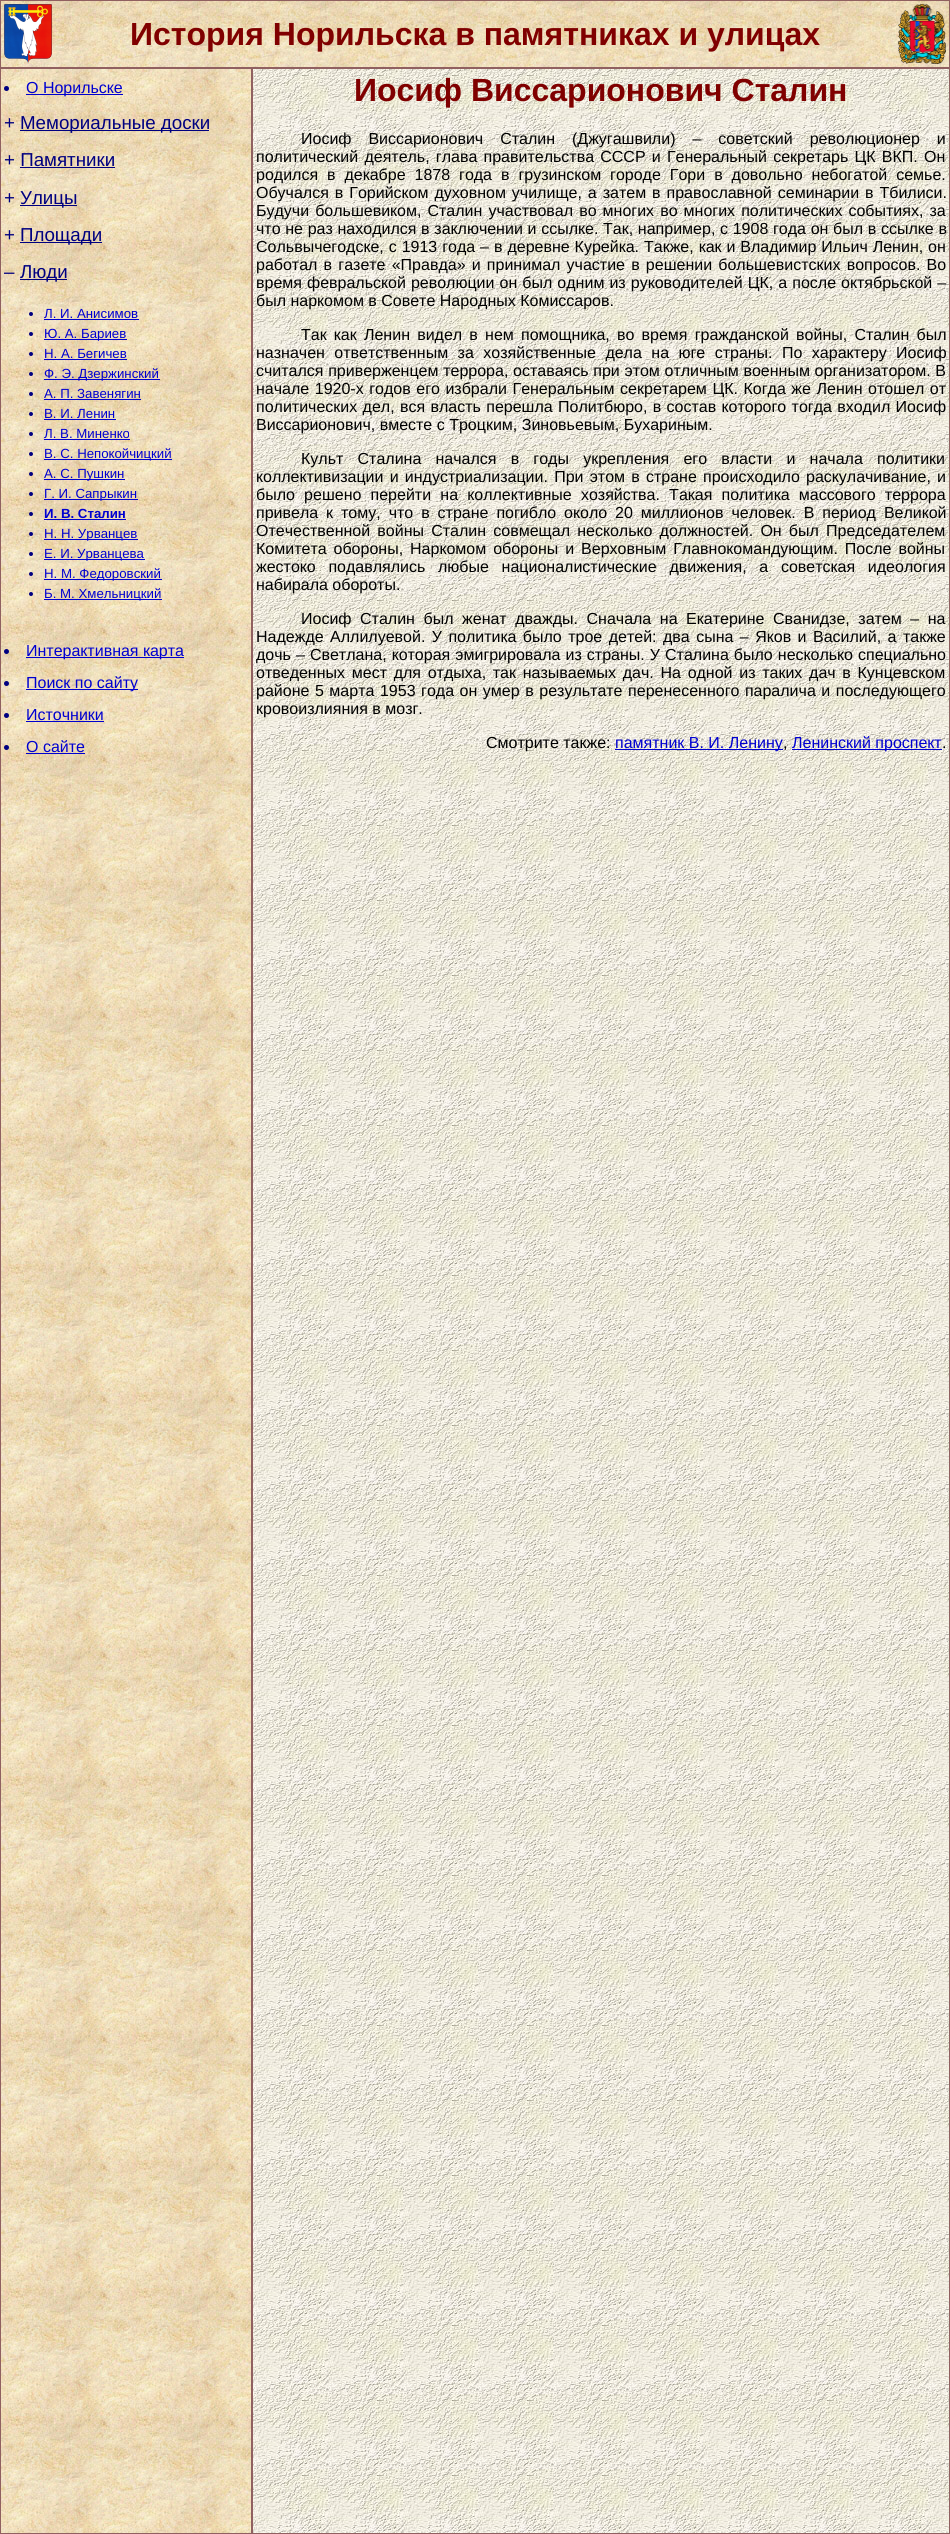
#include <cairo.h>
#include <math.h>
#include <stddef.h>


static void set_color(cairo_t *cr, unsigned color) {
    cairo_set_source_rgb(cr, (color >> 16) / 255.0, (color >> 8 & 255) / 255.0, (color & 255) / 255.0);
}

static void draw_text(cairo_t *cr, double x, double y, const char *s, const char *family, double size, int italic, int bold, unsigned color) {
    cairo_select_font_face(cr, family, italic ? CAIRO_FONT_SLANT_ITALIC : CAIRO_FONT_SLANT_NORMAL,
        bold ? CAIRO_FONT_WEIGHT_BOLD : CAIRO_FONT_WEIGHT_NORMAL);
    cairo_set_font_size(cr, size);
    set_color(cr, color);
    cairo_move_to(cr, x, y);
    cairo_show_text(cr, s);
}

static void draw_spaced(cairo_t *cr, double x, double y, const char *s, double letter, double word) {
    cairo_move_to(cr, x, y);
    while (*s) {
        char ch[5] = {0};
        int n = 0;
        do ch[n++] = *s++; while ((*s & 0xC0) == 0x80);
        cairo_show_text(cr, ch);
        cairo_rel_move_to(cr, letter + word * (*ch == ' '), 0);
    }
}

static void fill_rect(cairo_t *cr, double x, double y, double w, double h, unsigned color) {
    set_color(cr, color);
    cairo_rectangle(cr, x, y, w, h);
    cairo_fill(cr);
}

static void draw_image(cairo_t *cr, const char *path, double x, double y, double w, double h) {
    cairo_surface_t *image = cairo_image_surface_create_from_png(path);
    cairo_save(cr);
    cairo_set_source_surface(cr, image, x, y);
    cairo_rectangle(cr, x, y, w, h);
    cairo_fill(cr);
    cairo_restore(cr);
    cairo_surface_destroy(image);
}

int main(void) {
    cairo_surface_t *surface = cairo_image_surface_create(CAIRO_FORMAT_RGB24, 950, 2534);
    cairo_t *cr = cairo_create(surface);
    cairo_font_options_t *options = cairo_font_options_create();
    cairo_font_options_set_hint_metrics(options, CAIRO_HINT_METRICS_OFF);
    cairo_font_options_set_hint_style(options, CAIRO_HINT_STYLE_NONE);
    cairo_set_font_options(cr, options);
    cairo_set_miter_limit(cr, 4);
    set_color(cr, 0xFFFFFF);
    cairo_paint(cr);
    draw_image(cr, "assets/img1.png", 1, 1, 948, 2532);
    cairo_rectangle(cr, 0.5, 0.5, 949, 67);
    set_color(cr, 0x906060);
    cairo_set_line_width(cr, 1);
    cairo_stroke(cr);
    draw_image(cr, "assets/img2.png", 4, 4, 48, 60);
    draw_text(cr, 130, 45, "История Норильска в памятниках и улицах", "Liberation Sans", 32, 0, 1, 0x800000);
    draw_image(cr, "assets/img3.png", 898, 4, 48, 60);
    cairo_rectangle(cr, 0.5, 68.5, 251, 2465);
    set_color(cr, 0x906060);
    cairo_stroke(cr);
    set_color(cr, 0x000080);
    cairo_arc(cr, 6.5, 88.5, 2.5, 0, 2 * M_PI);
    cairo_fill(cr);
    fill_rect(cr, 26, 94, 97, 1, 0x0000D0);
    draw_text(cr, 26, 93, "О Норильске", "Liberation Sans", 16, 0, 0, 0x0000D0);
    draw_text(cr, 4, 129, "+", "Liberation Sans", 18.75, 0, 0, 0x000080);
    fill_rect(cr, 20, 130, 189, 1, 0x000080);
    draw_text(cr, 20, 129, "Мемориальные доски", "Liberation Sans", 18.75, 0, 0, 0x000080);
    draw_text(cr, 4, 166, "+ Памятники", "Liberation Sans", 18.75, 0, 0, 0x000080);
    fill_rect(cr, 20, 167, 95, 1, 0x000080);
    draw_text(cr, 4, 204, "+", "Liberation Sans", 18.75, 0, 0, 0x000080);
    fill_rect(cr, 20, 205, 57, 1, 0x000080);
    draw_text(cr, 20, 204, "Улицы", "Liberation Sans", 18.75, 0, 0, 0x000080);
    draw_text(cr, 4, 241, "+", "Liberation Sans", 18.75, 0, 0, 0x000080);
    fill_rect(cr, 20, 242, 82, 1, 0x000080);
    draw_text(cr, 20, 241, "Площади", "Liberation Sans", 18.75, 0, 0, 0x000080);
    draw_text(cr, 4, 278, "–", "Liberation Sans", 18.75, 0, 0, 0x000080);
    fill_rect(cr, 20, 279, 47, 1, 0x000080);
    draw_text(cr, 20, 278, "Люди", "Liberation Sans", 18.75, 0, 0, 0x000080);
    cairo_new_path(cr);
    cairo_arc(cr, 31, 314, 2, 0, 2 * M_PI);
    cairo_fill(cr);
    draw_text(cr, 44, 318, "Л. И. Анисимов", "Liberation Sans", 13.25, 0, 0, 0x0000D0);
    fill_rect(cr, 44, 319, 95, 1, 0x0000D0);
    set_color(cr, 0x000080);
    cairo_new_path(cr);
    cairo_arc(cr, 31, 334, 2, 0, 2 * M_PI);
    cairo_fill(cr);
    fill_rect(cr, 44, 339, 83, 1, 0x0000D0);
    draw_text(cr, 44, 338, "Ю. А. Бариев", "Liberation Sans", 13.25, 0, 0, 0x0000D0);
    set_color(cr, 0x000080);
    cairo_new_path(cr);
    cairo_arc(cr, 31, 354, 2, 0, 2 * M_PI);
    cairo_fill(cr);
    draw_text(cr, 44, 358, "Н. А. Бегичев", "Liberation Sans", 13.25, 0, 0, 0x0000D0);
    fill_rect(cr, 44, 359, 83, 1, 0x0000D0);
    set_color(cr, 0x000080);
    cairo_new_path(cr);
    cairo_arc(cr, 31, 374, 2, 0, 2 * M_PI);
    cairo_fill(cr);
    fill_rect(cr, 44, 379, 116, 1, 0x0000D0);
    draw_text(cr, 44, 378, "Ф. Э. Дзержинский", "Liberation Sans", 13.25, 0, 0, 0x0000D0);
    set_color(cr, 0x000080);
    cairo_new_path(cr);
    cairo_arc(cr, 31, 394, 2, 0, 2 * M_PI);
    cairo_fill(cr);
    draw_text(cr, 44, 398, "А. П. Завенягин", "Liberation Sans", 13.25, 0, 0, 0x0000D0);
    fill_rect(cr, 44, 399, 97, 1, 0x0000D0);
    set_color(cr, 0x000080);
    cairo_new_path(cr);
    cairo_arc(cr, 31, 414, 2, 0, 2 * M_PI);
    cairo_fill(cr);
    draw_text(cr, 44, 418, "В. И. Ленин", "Liberation Sans", 13.25, 0, 0, 0x0000D0);
    fill_rect(cr, 44, 419, 72, 1, 0x0000D0);
    set_color(cr, 0x000080);
    cairo_new_path(cr);
    cairo_arc(cr, 31, 434, 2, 0, 2 * M_PI);
    cairo_fill(cr);
    draw_text(cr, 44, 438, "Л. В. Миненко", "Liberation Sans", 13.25, 0, 0, 0x0000D0);
    fill_rect(cr, 44, 439, 86, 1, 0x0000D0);
    set_color(cr, 0x000080);
    cairo_new_path(cr);
    cairo_arc(cr, 31, 454, 2, 0, 2 * M_PI);
    cairo_fill(cr);
    fill_rect(cr, 44, 459, 128, 1, 0x0000D0);
    draw_text(cr, 44, 458, "В. С. Непокойчицкий", "Liberation Sans", 13.25, 0, 0, 0x0000D0);
    set_color(cr, 0x000080);
    cairo_new_path(cr);
    cairo_arc(cr, 31, 474, 2, 0, 2 * M_PI);
    cairo_fill(cr);
    fill_rect(cr, 44, 479, 81, 1, 0x0000D0);
    draw_text(cr, 44, 478, "А. С. Пушкин", "Liberation Sans", 13.25, 0, 0, 0x0000D0);
    set_color(cr, 0x000080);
    cairo_new_path(cr);
    cairo_arc(cr, 31, 494, 2, 0, 2 * M_PI);
    cairo_fill(cr);
    fill_rect(cr, 44, 499, 94, 1, 0x0000D0);
    draw_text(cr, 44, 498, "Г. И. Сапрыкин", "Liberation Sans", 13.25, 0, 0, 0x0000D0);
    set_color(cr, 0x000080);
    cairo_new_path(cr);
    cairo_arc(cr, 31, 514, 2, 0, 2 * M_PI);
    cairo_fill(cr);
    draw_text(cr, 44, 518, "И. В. Сталин", "Liberation Sans", 13.25, 0, 1, 0x0000D0);
    fill_rect(cr, 44, 519, 82, 1, 0x0000D0);
    set_color(cr, 0x000080);
    cairo_new_path(cr);
    cairo_arc(cr, 31, 534, 2, 0, 2 * M_PI);
    cairo_fill(cr);
    fill_rect(cr, 44, 539, 94, 1, 0x0000D0);
    draw_text(cr, 44, 538, "Н. Н. Урванцев", "Liberation Sans", 13.25, 0, 0, 0x0000D0);
    set_color(cr, 0x000080);
    cairo_new_path(cr);
    cairo_arc(cr, 31, 554, 2, 0, 2 * M_PI);
    cairo_fill(cr);
    fill_rect(cr, 44, 559, 101, 1, 0x0000D0);
    draw_text(cr, 44, 558, "Е. И. Урванцева", "Liberation Sans", 13.25, 0, 0, 0x0000D0);
    set_color(cr, 0x000080);
    cairo_new_path(cr);
    cairo_arc(cr, 31, 574, 2, 0, 2 * M_PI);
    cairo_fill(cr);
    fill_rect(cr, 44, 579, 118, 1, 0x0000D0);
    draw_text(cr, 44, 578, "Н. М. Федоровский", "Liberation Sans", 13.25, 0, 0, 0x0000D0);
    set_color(cr, 0x000080);
    cairo_new_path(cr);
    cairo_arc(cr, 31, 594, 2, 0, 2 * M_PI);
    cairo_fill(cr);
    fill_rect(cr, 44, 599, 118, 1, 0x0000D0);
    draw_text(cr, 44, 598, "Б. М. Хмельницкий", "Liberation Sans", 13.25, 0, 0, 0x0000D0);
    set_color(cr, 0x000080);
    cairo_new_path(cr);
    cairo_arc(cr, 6.5, 651.5, 2.5, 0, 2 * M_PI);
    cairo_fill(cr);
    fill_rect(cr, 26, 657, 158, 1, 0x0000D0);
    draw_text(cr, 26, 656, "Интерактивная карта", "Liberation Sans", 16, 0, 0, 0x0000D0);
    set_color(cr, 0x000080);
    cairo_new_path(cr);
    cairo_arc(cr, 6.5, 683.5, 2.5, 0, 2 * M_PI);
    cairo_fill(cr);
    fill_rect(cr, 26, 689, 112, 1, 0x0000D0);
    draw_text(cr, 26, 688, "Поиск по сайту", "Liberation Sans", 16, 0, 0, 0x0000D0);
    set_color(cr, 0x000080);
    cairo_new_path(cr);
    cairo_arc(cr, 6.5, 715.5, 2.5, 0, 2 * M_PI);
    cairo_fill(cr);
    draw_text(cr, 26, 720, "Источники", "Liberation Sans", 16, 0, 0, 0x0000D0);
    fill_rect(cr, 26, 721, 78, 1, 0x0000D0);
    set_color(cr, 0x000080);
    cairo_new_path(cr);
    cairo_arc(cr, 6.5, 747.5, 2.5, 0, 2 * M_PI);
    cairo_fill(cr);
    draw_text(cr, 26, 752, "О сайте", "Liberation Sans", 16, 0, 0, 0x0000D0);
    fill_rect(cr, 26, 753, 59, 1, 0x0000D0);
    draw_image(cr, "assets/img4.png", 253, 69, 696, 2464);
    cairo_rectangle(cr, 252.5, 68.5, 697, 2465);
    set_color(cr, 0x906060);
    cairo_stroke(cr);
    draw_text(cr, 354, 101, "Иосиф Виссарионович Сталин", "Liberation Sans", 32, 0, 1, 0x800000);
    cairo_select_font_face(cr, "Liberation Sans", CAIRO_FONT_SLANT_NORMAL, CAIRO_FONT_WEIGHT_NORMAL);
    cairo_set_font_size(cr, 16);
    set_color(cr, 0x000000);
    draw_spaced(cr, 301, 144, "Иосиф Виссарионович Сталин (Джугашвили) – советский революционер и", 0, 12.5);
    draw_spaced(cr, 256, 162, "политический деятель, глава правительства СССР и Генеральный секретарь ЦК ВКП. Он", 0, 1.75);
    draw_spaced(cr, 256, 180, "родился в декабре 1878 года в грузинском городе Гори в довольно небогатой семье.", 0, 4.5);
    draw_spaced(cr, 256, 198, "Обучался в Горийском духовном училище, а затем в православной семинарии в Тбилиси.", 0, 1.5);
    draw_spaced(cr, 256, 216, "Будучи большевиком, Сталин участвовал во многих во многих политических событиях, за", 0, 1.6);
    draw_spaced(cr, 256, 234, "что не раз находился в заключении и ссылке. Так, например, с 1908 года он был в ссылке в", 0, 0.25);
    draw_spaced(cr, 256, 252, "Сольвычегодске, с 1913 года – в деревне Курейка. Также, как и Владимир Ильич Ленин, он", 0, 0.5);
    draw_spaced(cr, 256, 270, "работал в газете «Правда» и принимал участие в решении большевистских вопросов. Во", 0, 1.75);
    draw_spaced(cr, 256, 288, "время февральской революции он был одним из руководителей ЦК, а после октябрьской –", 0, 0.6);
    draw_text(cr, 256, 306, "был наркомом в Совете Народных Комиссаров.", "Liberation Sans", 16, 0, 0, 0x000000);
    draw_spaced(cr, 301, 340, "Так как Ленин видел в нем помощника, во время гражданской войны, Сталин был", 0, 2.75);
    draw_spaced(cr, 256, 358, "назначен ответственным за хозяйственные дела на юге страны. По характеру Иосиф", 0, 5);
    draw_spaced(cr, 256, 376, "считался приверженцем террора, оставаясь при этом отличным военным организатором. В", 0, 0.25);
    draw_spaced(cr, 256, 394, "начале 1920-х годов его избрали Генеральным секретарем ЦК. Когда же Ленин отошел от", 0, 1.1);
    draw_spaced(cr, 256, 412, "политических дел, вся власть перешла Политбюро, в состав которого тогда входил Иосиф", 0, 0.9);
    draw_text(cr, 256, 430, "Виссарионович, вместе с Троцким, Зиновьевым, Бухариным.", "Liberation Sans", 16, 0, 0, 0x000000);
    draw_spaced(cr, 301, 464, "Культ Сталина начался в годы укрепления его власти и начала политики", 0, 9.75);
    draw_spaced(cr, 256, 482, "коллективизации и индустриализации. При этом в стране происходило раскулачивание, и", 0, 1.75);
    draw_spaced(cr, 256, 500, "было решено перейти на коллективные хозяйства. Такая политика массового террора", 0, 4.75);
    draw_spaced(cr, 256, 518, "привела к тому, что в стране погибло около 20 миллионов человек. В период Великой", 0, 3.5);
    draw_spaced(cr, 256, 536, "Отечественной войны Сталин совмещал несколько должностей. Он был Председателем", 0, 2.75);
    draw_spaced(cr, 256, 554, "Комитета обороны, Наркомом обороны и Верховным Главнокомандующим. После войны", 0, 2.5);
    draw_spaced(cr, 256, 572, "жестоко подавлялись любые националистические движения, а советская идеология", 0, 8.25);
    draw_text(cr, 256, 590, "набирала обороты.", "Liberation Sans", 16, 0, 0, 0x000000);
    draw_spaced(cr, 301, 624, "Иосиф Сталин был женат дважды. Сначала на Екатерине Сванидзе, затем – на", 0, 4.1);
    draw_spaced(cr, 256, 642, "Надежде Аллилуевой. У политика было трое детей: два сына – Яков и Василий, а также", 0, 2);
    draw_spaced(cr, 256, 660, "дочь – Светлана, которая эмигрировала из страны. У Сталина было несколько специально", 0, 0.6);
    draw_spaced(cr, 256, 678, "отведенных мест для отдыха, так называемых дач. На одной из таких дач в Кунцевском", 0, 2.25);
    draw_spaced(cr, 256, 696, "районе 5 марта 1953 года он умер в результате перенесенного паралича и последующего", 0, 1.1);
    draw_text(cr, 256, 714, "кровоизлияния в мозг.", "Liberation Sans", 16, 0, 0, 0x000000);
    draw_text(cr, 486, 748, "Смотрите также:", "Liberation Sans", 16, 0, 0, 0x000000);
    fill_rect(cr, 615, 749, 168, 1, 0x0000D0);
    draw_text(cr, 615, 748, "памятник В. И. Ленину", "Liberation Sans", 16, 0, 0, 0x0000D0);
    draw_text(cr, 783, 748, ",", "Liberation Sans", 16, 0, 0, 0x000000);
    fill_rect(cr, 792, 749, 150, 1, 0x0000D0);
    draw_text(cr, 792, 748, "Ленинский проспект", "Liberation Sans", 16, 0, 0, 0x0000D0);
    draw_text(cr, 942, 748, ".", "Liberation Sans", 16, 0, 0, 0x000000);
    cairo_surface_write_to_png(surface, "output.png");
    cairo_font_options_destroy(options);
    cairo_destroy(cr);
    cairo_surface_destroy(surface);
    return 0;
}
